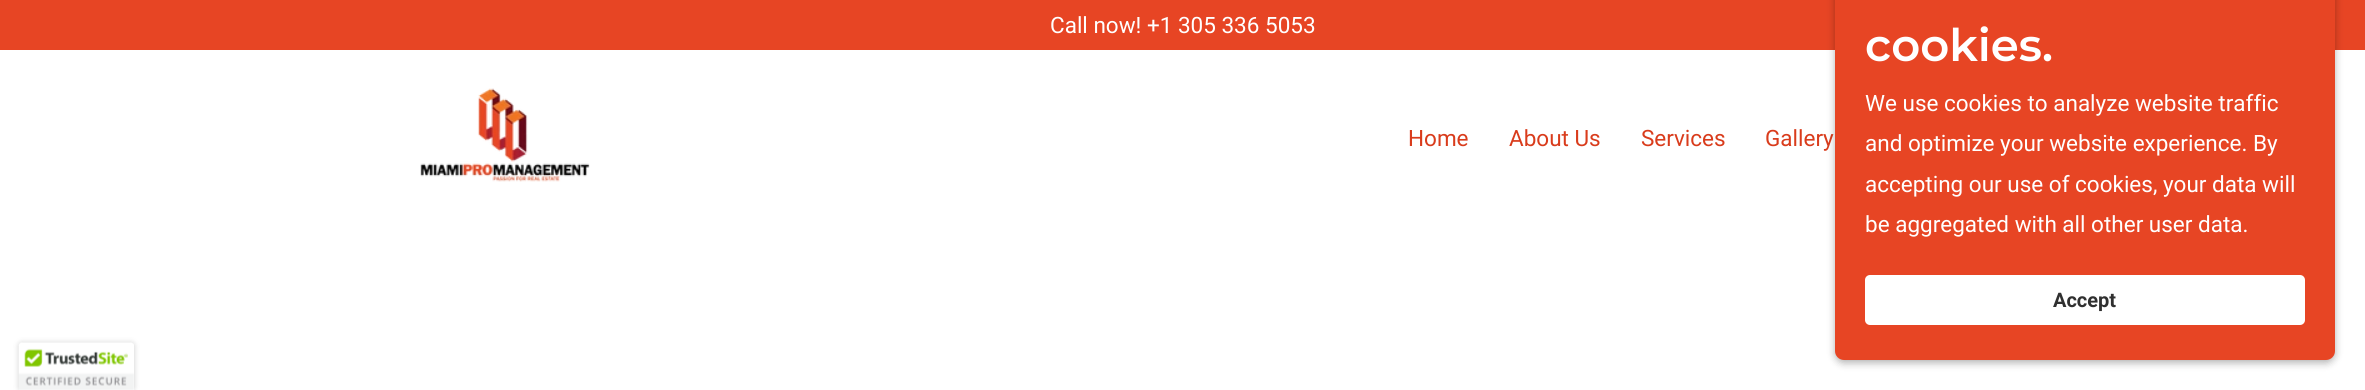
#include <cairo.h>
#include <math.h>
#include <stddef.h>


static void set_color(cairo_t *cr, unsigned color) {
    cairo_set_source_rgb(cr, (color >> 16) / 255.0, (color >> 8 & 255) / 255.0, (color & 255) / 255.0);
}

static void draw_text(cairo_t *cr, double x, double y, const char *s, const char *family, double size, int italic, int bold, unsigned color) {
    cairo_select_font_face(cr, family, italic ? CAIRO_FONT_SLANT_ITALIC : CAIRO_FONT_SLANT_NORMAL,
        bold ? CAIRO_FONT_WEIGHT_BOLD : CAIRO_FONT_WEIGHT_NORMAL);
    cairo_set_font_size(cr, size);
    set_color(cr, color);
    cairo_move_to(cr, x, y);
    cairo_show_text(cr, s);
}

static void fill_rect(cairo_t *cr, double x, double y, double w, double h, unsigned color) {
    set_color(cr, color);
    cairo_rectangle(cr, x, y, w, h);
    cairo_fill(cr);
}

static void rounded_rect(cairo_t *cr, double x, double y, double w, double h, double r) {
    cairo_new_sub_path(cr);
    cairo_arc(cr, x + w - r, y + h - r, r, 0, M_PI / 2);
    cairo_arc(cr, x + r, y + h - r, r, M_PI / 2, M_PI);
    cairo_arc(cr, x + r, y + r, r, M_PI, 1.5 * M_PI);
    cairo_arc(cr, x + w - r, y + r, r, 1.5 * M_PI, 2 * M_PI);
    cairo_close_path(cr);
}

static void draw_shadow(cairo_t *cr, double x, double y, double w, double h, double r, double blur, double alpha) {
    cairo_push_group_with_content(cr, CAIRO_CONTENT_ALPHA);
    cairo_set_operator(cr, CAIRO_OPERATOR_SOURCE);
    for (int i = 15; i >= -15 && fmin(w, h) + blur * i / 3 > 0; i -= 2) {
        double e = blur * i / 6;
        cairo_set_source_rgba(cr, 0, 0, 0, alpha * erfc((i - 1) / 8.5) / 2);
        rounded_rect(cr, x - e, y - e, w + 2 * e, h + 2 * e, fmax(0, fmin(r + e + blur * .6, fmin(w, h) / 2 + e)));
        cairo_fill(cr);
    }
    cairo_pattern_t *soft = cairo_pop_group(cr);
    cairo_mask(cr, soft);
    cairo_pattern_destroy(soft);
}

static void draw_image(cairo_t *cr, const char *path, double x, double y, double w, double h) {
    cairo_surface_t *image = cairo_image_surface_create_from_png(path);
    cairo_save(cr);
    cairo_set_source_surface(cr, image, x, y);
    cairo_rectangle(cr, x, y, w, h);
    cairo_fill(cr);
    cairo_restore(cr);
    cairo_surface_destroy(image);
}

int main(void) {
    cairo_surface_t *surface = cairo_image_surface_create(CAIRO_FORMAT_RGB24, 2365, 390);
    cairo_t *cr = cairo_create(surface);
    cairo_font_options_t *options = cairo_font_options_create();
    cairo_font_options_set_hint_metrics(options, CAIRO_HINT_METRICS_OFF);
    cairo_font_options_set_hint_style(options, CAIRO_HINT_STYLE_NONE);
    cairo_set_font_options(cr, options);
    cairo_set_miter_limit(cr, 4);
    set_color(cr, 0xFFFFFF);
    cairo_paint(cr);
    fill_rect(cr, 0, 0, 2365, 50, 0xE74524);
    draw_text(cr, 1050, 33, "Call now! +1 305 336 5053", "Roboto", 22.5, 0, 0, 0xFFFFFF);
    draw_image(cr, "assets/img1.png", 420, 88, 170, 94);
    draw_text(cr, 1408, 146, "Home", "Roboto", 22.5, 0, 0, 0xD93C1C);
    draw_text(cr, 1509, 146, "About Us", "Roboto", 22.5, 0, 0, 0xD93C1C);
    draw_text(cr, 1641, 146, "Services", "Roboto", 22.5, 0, 0, 0xD93C1C);
    draw_text(cr, 1765, 146, "Gallery", "Roboto", 22.5, 0, 0, 0xD93C1C);
    set_color(cr, 0x000000);
    draw_shadow(cr, 1835, -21, 500, 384, 9, 4, 0.3);
    set_color(cr, 0xE74524);
    rounded_rect(cr, 1835, -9, 500, 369, 9);
    cairo_fill(cr);
    draw_text(cr, 1865, 61, "cookies.", "Montserrat SemiBold", 45, 0, 0, 0xFFFFFF);
    draw_text(cr, 1865, 111, "We use cookies to analyze website traffic", "Roboto", 22.5, 0, 0, 0xFFFFFF);
    draw_text(cr, 1865, 151, "and optimize your website experience. By", "Roboto", 22.5, 0, 0, 0xFFFFFF);
    draw_text(cr, 1865, 192, "accepting our use of cookies, your data will", "Roboto", 22.5, 0, 0, 0xFFFFFF);
    draw_text(cr, 1865, 232, "be aggregated with all other user data.", "Roboto", 22.5, 0, 0, 0xFFFFFF);
    rounded_rect(cr, 1865, 275, 440, 50, 5);
    cairo_fill(cr);
    draw_text(cr, 2053, 307, "Accept", "Roboto", 20, 0, 1, 0x303030);
    set_color(cr, 0x000000);
    draw_shadow(cr, 19, 343, 115, 47, 2.5, 3, 0.2);
    set_color(cr, 0xFFFFFF);
    cairo_new_path(cr);
    cairo_move_to(cr, 21.5, 343);
    cairo_line_to(cr, 131.5, 343);
    cairo_curve_to(cr, 133, 343, 134, 344, 134, 345.5);
    cairo_line_to(cr, 134, 390);
    cairo_line_to(cr, 19, 390);
    cairo_line_to(cr, 19, 345.5);
    cairo_curve_to(cr, 19, 344, 20, 343, 21.5, 343);
    cairo_close_path(cr);
    cairo_fill(cr);
    draw_image(cr, "assets/img2.png", 18, 342, 116, 48);
    cairo_surface_write_to_png(surface, "output.png");
    cairo_font_options_destroy(options);
    cairo_destroy(cr);
    cairo_surface_destroy(surface);
    return 0;
}
